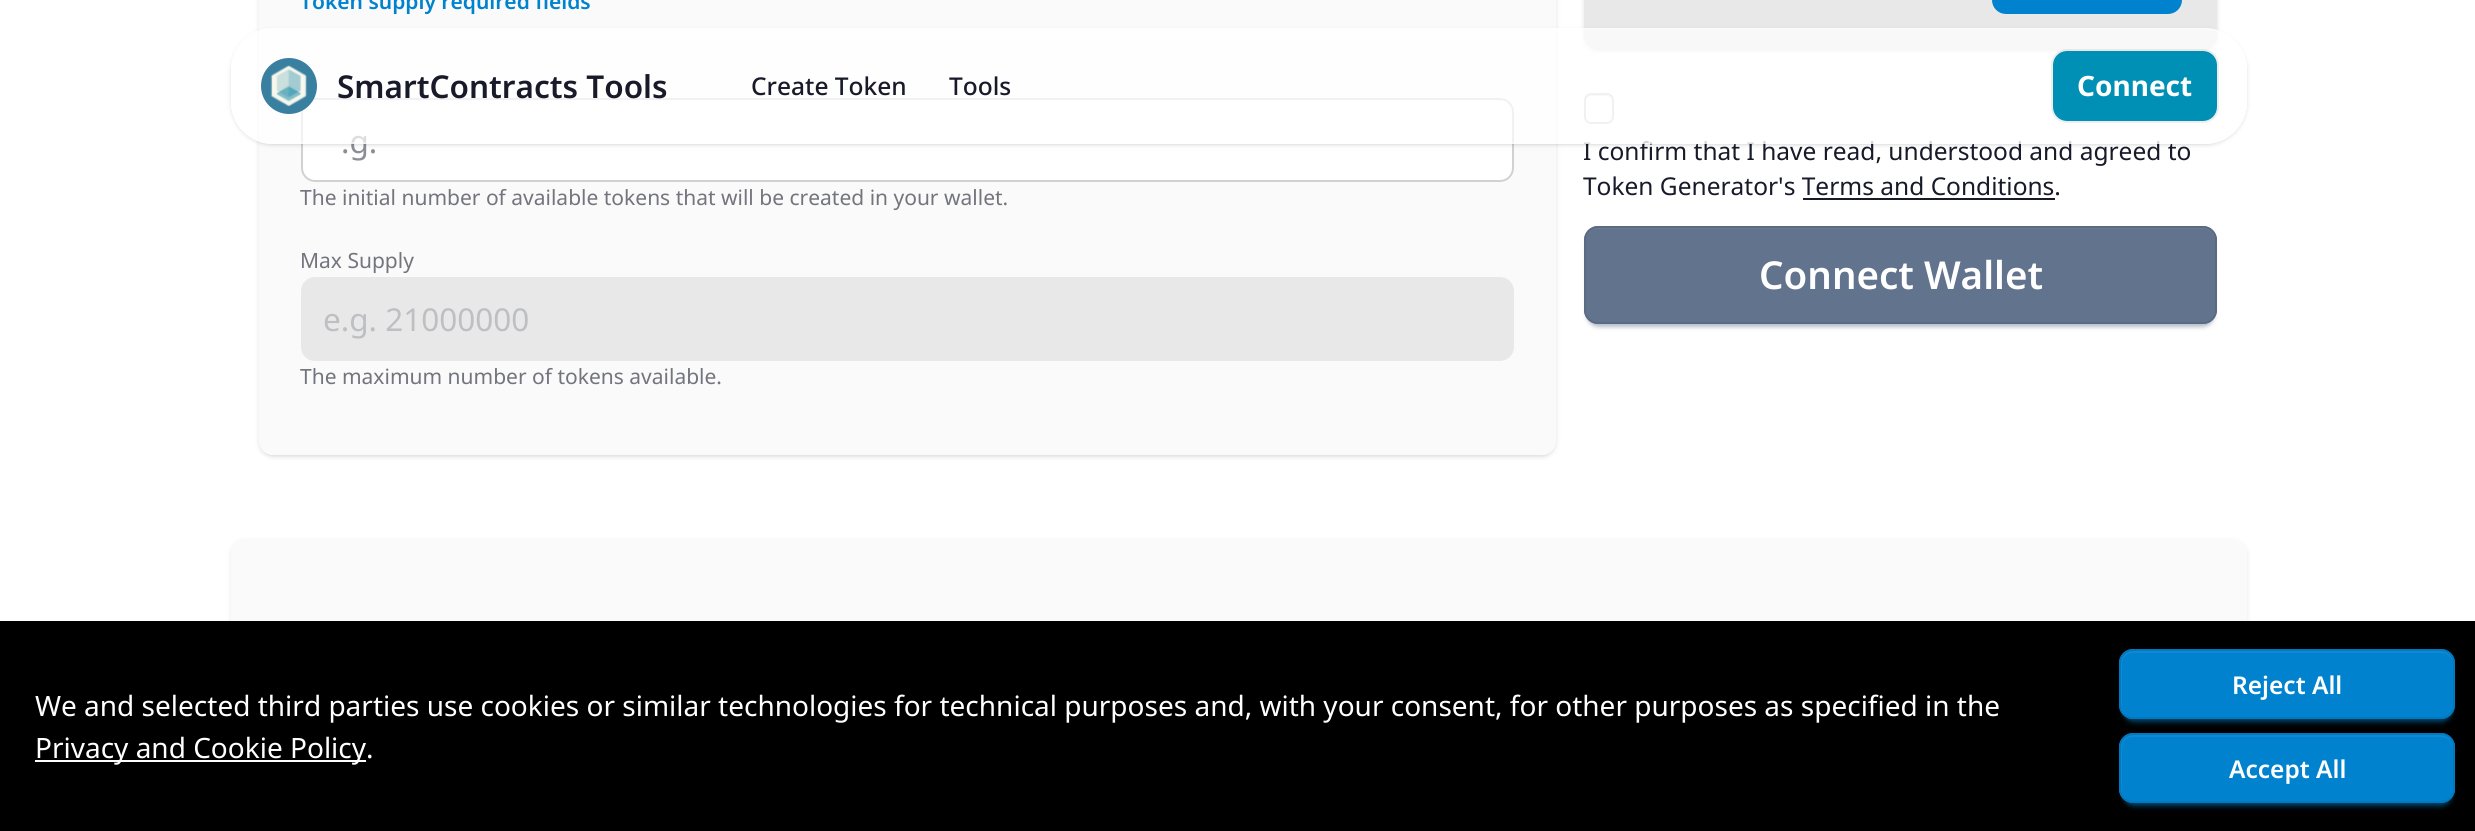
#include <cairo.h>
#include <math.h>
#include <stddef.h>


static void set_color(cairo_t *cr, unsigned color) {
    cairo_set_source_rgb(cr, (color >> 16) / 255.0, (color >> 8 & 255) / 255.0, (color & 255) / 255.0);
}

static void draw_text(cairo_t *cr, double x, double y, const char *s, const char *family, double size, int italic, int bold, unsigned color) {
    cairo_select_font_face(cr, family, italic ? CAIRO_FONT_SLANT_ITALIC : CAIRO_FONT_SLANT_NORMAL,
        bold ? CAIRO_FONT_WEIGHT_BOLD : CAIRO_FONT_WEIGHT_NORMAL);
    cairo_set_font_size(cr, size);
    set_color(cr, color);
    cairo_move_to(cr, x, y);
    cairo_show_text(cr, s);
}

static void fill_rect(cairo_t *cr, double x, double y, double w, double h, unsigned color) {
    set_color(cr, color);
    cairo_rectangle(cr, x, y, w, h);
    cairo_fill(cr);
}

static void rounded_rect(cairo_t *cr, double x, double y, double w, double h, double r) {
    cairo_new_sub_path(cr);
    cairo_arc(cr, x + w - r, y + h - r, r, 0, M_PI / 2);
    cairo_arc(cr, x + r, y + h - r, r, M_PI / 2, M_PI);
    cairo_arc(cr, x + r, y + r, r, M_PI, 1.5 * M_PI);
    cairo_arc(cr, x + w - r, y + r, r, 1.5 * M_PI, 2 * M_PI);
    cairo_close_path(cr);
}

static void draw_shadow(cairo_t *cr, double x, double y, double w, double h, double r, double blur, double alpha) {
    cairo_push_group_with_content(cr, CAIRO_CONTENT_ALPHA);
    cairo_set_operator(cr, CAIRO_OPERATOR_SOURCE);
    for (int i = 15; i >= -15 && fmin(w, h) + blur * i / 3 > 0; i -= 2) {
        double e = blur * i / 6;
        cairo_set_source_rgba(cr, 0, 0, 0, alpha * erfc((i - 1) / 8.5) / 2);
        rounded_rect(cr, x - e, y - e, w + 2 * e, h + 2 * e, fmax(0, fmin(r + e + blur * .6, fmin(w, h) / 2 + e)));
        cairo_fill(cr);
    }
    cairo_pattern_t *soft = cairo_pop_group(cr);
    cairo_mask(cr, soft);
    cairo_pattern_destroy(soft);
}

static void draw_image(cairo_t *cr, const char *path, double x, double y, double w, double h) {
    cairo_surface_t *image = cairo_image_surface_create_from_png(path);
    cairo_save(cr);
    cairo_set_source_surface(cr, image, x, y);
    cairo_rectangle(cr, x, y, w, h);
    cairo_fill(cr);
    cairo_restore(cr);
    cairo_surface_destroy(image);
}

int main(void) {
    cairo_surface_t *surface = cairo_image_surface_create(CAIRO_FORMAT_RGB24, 2475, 831);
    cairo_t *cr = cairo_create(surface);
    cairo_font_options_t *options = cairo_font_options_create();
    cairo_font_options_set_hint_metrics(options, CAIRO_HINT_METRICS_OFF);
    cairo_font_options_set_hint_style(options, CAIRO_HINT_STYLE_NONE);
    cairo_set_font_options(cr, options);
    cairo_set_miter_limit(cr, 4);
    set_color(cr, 0xFFFFFF);
    cairo_paint(cr);
    cairo_save(cr);
    cairo_set_fill_rule(cr, CAIRO_FILL_RULE_EVEN_ODD);
    cairo_new_path(cr);
    cairo_move_to(cr, 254, 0);
    cairo_line_to(cr, 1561, 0);
    cairo_line_to(cr, 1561, 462);
    cairo_line_to(cr, 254, 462);
    cairo_close_path(cr);
    cairo_move_to(cr, 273, -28);
    cairo_line_to(cr, 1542, -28);
    cairo_curve_to(cr, 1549.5, -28, 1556, -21.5, 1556, -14);
    cairo_line_to(cr, 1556, 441);
    cairo_curve_to(cr, 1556, 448.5, 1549.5, 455, 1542, 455);
    cairo_line_to(cr, 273, 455);
    cairo_curve_to(cr, 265.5, 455, 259, 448.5, 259, 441);
    cairo_line_to(cr, 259, -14);
    cairo_curve_to(cr, 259, -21.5, 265.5, -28, 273, -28);
    cairo_close_path(cr);
    cairo_clip(cr);
    set_color(cr, 0x000000);
    draw_shadow(cr, 261, -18, 1293, 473, 12, 2, 0.1);
    cairo_restore(cr);
    cairo_save(cr);
    cairo_set_fill_rule(cr, CAIRO_FILL_RULE_EVEN_ODD);
    cairo_new_path(cr);
    cairo_move_to(cr, 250, 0);
    cairo_line_to(cr, 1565, 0);
    cairo_line_to(cr, 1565, 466);
    cairo_line_to(cr, 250, 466);
    cairo_close_path(cr);
    cairo_move_to(cr, 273, -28);
    cairo_line_to(cr, 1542, -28);
    cairo_curve_to(cr, 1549.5, -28, 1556, -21.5, 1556, -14);
    cairo_line_to(cr, 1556, 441);
    cairo_curve_to(cr, 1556, 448.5, 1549.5, 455, 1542, 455);
    cairo_line_to(cr, 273, 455);
    cairo_curve_to(cr, 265.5, 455, 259, 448.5, 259, 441);
    cairo_line_to(cr, 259, -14);
    cairo_curve_to(cr, 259, -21.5, 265.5, -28, 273, -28);
    cairo_close_path(cr);
    cairo_clip(cr);
    set_color(cr, 0x000000);
    draw_shadow(cr, 259, -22, 1297, 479, 14, 2.5, 0.1);
    cairo_restore(cr);
    cairo_set_source_rgba(cr, 0.91, 0.91, 0.91, 0.2);
    rounded_rect(cr, 259, -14, 1297, 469, 14);
    cairo_fill(cr);
    draw_text(cr, 300, 9, "Token supply required fields", "Noto Sans SemiBold", 21, 0, 0, 0x0082CE);
    set_color(cr, 0xFFFFFF);
    rounded_rect(cr, 301, 98, 1213, 84, 14);
    cairo_fill(cr);
    set_color(cr, 0xFAFAFB);
    cairo_new_path(cr);
    cairo_move_to(cr, 315, 102);
    cairo_line_to(cr, 1500, 102);
    cairo_curve_to(cr, 1507, 102, 1512, 107, 1512, 114);
    cairo_curve_to(cr, 1512, 107, 1508, 100, 1500, 100);
    cairo_line_to(cr, 315, 100);
    cairo_curve_to(cr, 307, 100, 303, 107, 303, 114);
    cairo_curve_to(cr, 303, 107, 308, 102, 315, 102);
    cairo_close_path(cr);
    cairo_fill(cr);
    rounded_rect(cr, 302, 99, 1211, 82, 13);
    set_color(cr, 0xD1D1D4);
    cairo_stroke(cr);
    draw_text(cr, 341, 153, ".g.", "Noto Sans", 31.5, 0, 0, 0x8C8D95);
    draw_text(cr, 300, 205, "The initial number of available tokens that will be created in your wallet.", "Noto Sans", 21, 0, 0, 0x73747D);
    draw_text(cr, 300, 268, "Max Supply", "Noto Sans", 21, 0, 0, 0x73747D);
    set_color(cr, 0xE8E8E8);
    rounded_rect(cr, 302, 278, 1211, 82, 13);
    cairo_fill_preserve(cr);
    cairo_stroke(cr);
    draw_text(cr, 323, 331, "e.g. 21000000", "Noto Sans", 31.5, 0, 0, 0xBEBFC2);
    draw_text(cr, 300, 384, "The maximum number of tokens available.", "Noto Sans", 21, 0, 0, 0x73747D);
    set_color(cr, 0x000000);
    draw_shadow(cr, 1586, -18, 630, 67, 12, 2, 0.1);
    draw_shadow(cr, 1584, -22, 633, 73, 14, 2.5, 0.1);
    set_color(cr, 0xE8E8E8);
    cairo_new_path(cr);
    cairo_move_to(cr, 1584, -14);
    cairo_line_to(cr, 2217, -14);
    cairo_line_to(cr, 2217, 35);
    cairo_curve_to(cr, 2217, 42.5, 2210.5, 49, 2203, 49);
    cairo_line_to(cr, 1598, 49);
    cairo_curve_to(cr, 1590.5, 49, 1584, 42.5, 1584, 35);
    cairo_close_path(cr);
    cairo_fill(cr);
    set_color(cr, 0x0082CE);
    rounded_rect(cr, 1992, -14, 190, 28, 14);
    cairo_fill(cr);
    set_color(cr, 0xE6E6E6);
    cairo_new_path(cr);
    cairo_move_to(cr, 1591, 96);
    cairo_curve_to(cr, 1594, 96, 1607, 95.5, 1609.5, 97);
    cairo_curve_to(cr, 1611, 97.5, 1611.5, 98.5, 1612, 100);
    cairo_curve_to(cr, 1612, 93.5, 1603, 95, 1599, 95);
    cairo_curve_to(cr, 1594, 95, 1586, 93, 1586, 100.5);
    cairo_curve_to(cr, 1586.5, 98, 1588, 96, 1591, 96);
    cairo_close_path(cr);
    cairo_fill(cr);
    rounded_rect(cr, 1585, 94, 28, 29, 6);
    cairo_set_source_rgba(cr, 0.094, 0.102, 0.165, 0.2);
    cairo_stroke(cr);
    draw_text(cr, 1583, 160, "I confirm that I have read, understood and agreed to", "Noto Sans", 24.5, 0, 0, 0x181A2A);
    draw_text(cr, 1583, 195, "Token Generator's Terms and Conditions.", "Noto Sans", 24.5, 0, 0, 0x181A2A);
    fill_rect(cr, 1803, 198, 252, 2, 0x181A2A);
    set_color(cr, 0x61738D);
    draw_shadow(cr, 1587, 236, 627, 91, 11, 2.5, 0.3);
    draw_shadow(cr, 1587, 235, 627, 91, 11, 2, 0.3);
    set_color(cr, 0x61738D);
    rounded_rect(cr, 1584, 226, 633, 98, 14);
    cairo_fill(cr);
    set_color(cr, 0x6A7B94);
    cairo_new_path(cr);
    cairo_move_to(cr, 1598, 229);
    cairo_line_to(cr, 2203, 229);
    cairo_curve_to(cr, 2210, 229, 2215, 234, 2215, 241);
    cairo_line_to(cr, 2215, 311);
    cairo_curve_to(cr, 2215, 317, 2210, 322, 2203, 322);
    cairo_line_to(cr, 2204, 322);
    cairo_curve_to(cr, 2211, 322, 2216, 317, 2216, 310);
    cairo_line_to(cr, 2216, 240);
    cairo_curve_to(cr, 2216, 233, 2211, 228, 2204, 228);
    cairo_line_to(cr, 1598, 228);
    cairo_curve_to(cr, 1591, 228, 1586, 233, 1586, 240);
    cairo_line_to(cr, 1586, 241);
    cairo_curve_to(cr, 1586, 234, 1591, 229, 1598, 229);
    cairo_close_path(cr);
    cairo_fill(cr);
    rounded_rect(cr, 1585, 227, 631, 96, 13);
    set_color(cr, 0x5A6B83);
    cairo_stroke(cr);
    draw_text(cr, 1759, 289, "Connect Wallet", "Noto Sans SemiBold", 38.5, 0, 0, 0xFFFFFF);
    cairo_save(cr);
    cairo_set_fill_rule(cr, CAIRO_FILL_RULE_EVEN_ODD);
    cairo_new_path(cr);
    cairo_move_to(cr, 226, 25);
    cairo_line_to(cr, 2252, 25);
    cairo_line_to(cr, 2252, 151);
    cairo_line_to(cr, 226, 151);
    cairo_close_path(cr);
    cairo_move_to(cr, 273, 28);
    cairo_line_to(cr, 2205, 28);
    cairo_curve_to(cr, 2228, 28, 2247, 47, 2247, 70);
    cairo_line_to(cr, 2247, 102);
    cairo_curve_to(cr, 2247, 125, 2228, 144, 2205, 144);
    cairo_line_to(cr, 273, 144);
    cairo_curve_to(cr, 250, 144, 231, 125, 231, 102);
    cairo_line_to(cr, 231, 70);
    cairo_curve_to(cr, 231, 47, 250, 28, 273, 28);
    cairo_close_path(cr);
    cairo_clip(cr);
    set_color(cr, 0x000000);
    draw_shadow(cr, 233, 32, 2012, 112, 40, 2, 0.1);
    cairo_restore(cr);
    cairo_save(cr);
    cairo_set_fill_rule(cr, CAIRO_FILL_RULE_EVEN_ODD);
    cairo_new_path(cr);
    cairo_move_to(cr, 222, 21);
    cairo_line_to(cr, 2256, 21);
    cairo_line_to(cr, 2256, 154);
    cairo_line_to(cr, 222, 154);
    cairo_close_path(cr);
    cairo_move_to(cr, 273, 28);
    cairo_line_to(cr, 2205, 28);
    cairo_curve_to(cr, 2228, 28, 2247, 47, 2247, 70);
    cairo_line_to(cr, 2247, 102);
    cairo_curve_to(cr, 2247, 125, 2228, 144, 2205, 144);
    cairo_line_to(cr, 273, 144);
    cairo_curve_to(cr, 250, 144, 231, 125, 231, 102);
    cairo_line_to(cr, 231, 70);
    cairo_curve_to(cr, 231, 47, 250, 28, 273, 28);
    cairo_close_path(cr);
    cairo_clip(cr);
    set_color(cr, 0x000000);
    draw_shadow(cr, 231, 30, 2016, 115, 42, 2.5, 0.1);
    cairo_restore(cr);
    cairo_set_source_rgba(cr, 1, 1, 1, 0.7);
    rounded_rect(cr, 231, 28, 2016, 116, 42);
    cairo_fill(cr);
    rounded_rect(cr, 232, 29, 2014, 114, 41);
    cairo_set_source_rgba(cr, 1, 1, 1, 0.4);
    cairo_stroke(cr);
    set_color(cr, 0x397FA0);
    cairo_arc(cr, 289, 86, 28, 0, 2 * M_PI);
    cairo_fill(cr);
    draw_image(cr, "assets/img1.png", 270, 65, 37, 42);
    draw_text(cr, 337, 98, "SmartContracts Tools", "Noto Sans SemiBold", 31.5, 0, 0, 0x181A2A);
    draw_text(cr, 751, 95, "Create Token", "Noto Sans Medium", 24.5, 0, 0, 0x181A2A);
    draw_text(cr, 949, 95, "Tools", "Noto Sans Medium", 24.5, 0, 0, 0x181A2A);
    rounded_rect(cr, 2052, 50, 166, 72, 15);
    cairo_set_source_rgba(cr, 0, 0, 0, 0.07);
    cairo_stroke(cr);
    set_color(cr, 0x0090B5);
    rounded_rect(cr, 2053, 51, 164, 70, 14);
    cairo_fill(cr);
    draw_text(cr, 2077, 96, "Connect", "Noto Sans", 28, 0, 1, 0xFFFFFF);
    cairo_save(cr);
    cairo_set_fill_rule(cr, CAIRO_FILL_RULE_EVEN_ODD);
    cairo_new_path(cr);
    cairo_move_to(cr, 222, 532);
    cairo_line_to(cr, 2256, 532);
    cairo_line_to(cr, 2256, 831);
    cairo_line_to(cr, 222, 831);
    cairo_close_path(cr);
    cairo_move_to(cr, 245, 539);
    cairo_line_to(cr, 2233, 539);
    cairo_curve_to(cr, 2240.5, 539, 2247, 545.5, 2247, 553);
    cairo_line_to(cr, 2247, 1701);
    cairo_curve_to(cr, 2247, 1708.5, 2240.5, 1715, 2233, 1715);
    cairo_line_to(cr, 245, 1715);
    cairo_curve_to(cr, 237.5, 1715, 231, 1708.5, 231, 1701);
    cairo_line_to(cr, 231, 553);
    cairo_curve_to(cr, 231, 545.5, 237.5, 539, 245, 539);
    cairo_close_path(cr);
    cairo_clip(cr);
    set_color(cr, 0x000000);
    draw_shadow(cr, 231, 541, 2016, 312, 14, 2.5, 0.1);
    cairo_restore(cr);
    cairo_set_source_rgba(cr, 0.91, 0.91, 0.91, 0.2);
    rounded_rect(cr, 231, 539, 2016, 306, 14);
    cairo_fill(cr);
    fill_rect(cr, 0, 621, 2475, 210, 0x000000);
    draw_text(cr, 35, 716, "We and selected third parties use cookies or similar technologies for technical purposes and, with your consent, for other purposes as specified in the", "Noto Sans", 28, 0, 0, 0xFFFFFF);
    fill_rect(cr, 35, 760, 331, 2, 0xFFFFFF);
    draw_text(cr, 35, 758, "Privacy and Cookie Policy.", "Noto Sans", 28, 0, 0, 0xFFFFFF);
    set_color(cr, 0x0082CE);
    draw_shadow(cr, 2123, 660, 329, 63, 11, 2.5, 0.3);
    draw_shadow(cr, 2123, 658, 329, 63, 11, 2, 0.3);
    set_color(cr, 0x0082CE);
    rounded_rect(cr, 2119, 649, 336, 70, 14);
    cairo_fill(cr);
    cairo_set_source_rgba(cr, 1, 1, 1, 0.06);
    cairo_new_path(cr);
    cairo_move_to(cr, 2133, 653);
    cairo_line_to(cr, 2441, 653);
    cairo_curve_to(cr, 2448, 653, 2453, 658, 2453, 664);
    cairo_line_to(cr, 2453, 706);
    cairo_curve_to(cr, 2453, 712, 2448, 718, 2441, 718);
    cairo_line_to(cr, 2442, 718);
    cairo_curve_to(cr, 2449, 718, 2454, 713, 2454, 706);
    cairo_line_to(cr, 2454, 663);
    cairo_curve_to(cr, 2454, 656, 2449, 651, 2442, 651);
    cairo_line_to(cr, 2133, 651);
    cairo_curve_to(cr, 2126, 651, 2121, 656, 2121, 663);
    cairo_line_to(cr, 2121, 706);
    cairo_curve_to(cr, 2121, 713, 2126, 718, 2133, 718);
    cairo_curve_to(cr, 2127, 718, 2122, 712, 2122, 706);
    cairo_line_to(cr, 2122, 664);
    cairo_curve_to(cr, 2122, 658, 2127, 653, 2133, 653);
    cairo_close_path(cr);
    cairo_fill(cr);
    rounded_rect(cr, 2120, 650, 334, 68, 13);
    set_color(cr, 0x0079C1);
    cairo_stroke(cr);
    draw_text(cr, 2232, 694, "Reject All", "Noto Sans SemiBold", 24.5, 0, 0, 0xFFFFFF);
    set_color(cr, 0x0082CE);
    draw_shadow(cr, 2123, 744, 329, 63, 11, 2.5, 0.3);
    draw_shadow(cr, 2123, 742, 329, 63, 11, 2, 0.3);
    set_color(cr, 0x0082CE);
    rounded_rect(cr, 2119, 733, 336, 70, 14);
    cairo_fill(cr);
    cairo_set_source_rgba(cr, 1, 1, 1, 0.06);
    cairo_new_path(cr);
    cairo_move_to(cr, 2133, 737);
    cairo_line_to(cr, 2441, 737);
    cairo_curve_to(cr, 2448, 737, 2453, 742, 2453, 748);
    cairo_line_to(cr, 2453, 790);
    cairo_curve_to(cr, 2453, 796, 2448, 802, 2441, 802);
    cairo_line_to(cr, 2442, 802);
    cairo_curve_to(cr, 2449, 802, 2454, 797, 2454, 790);
    cairo_line_to(cr, 2454, 747);
    cairo_curve_to(cr, 2454, 740, 2449, 735, 2442, 735);
    cairo_line_to(cr, 2133, 735);
    cairo_curve_to(cr, 2126, 735, 2121, 740, 2121, 747);
    cairo_line_to(cr, 2121, 790);
    cairo_curve_to(cr, 2121, 797, 2126, 802, 2133, 802);
    cairo_curve_to(cr, 2127, 802, 2122, 796, 2122, 790);
    cairo_line_to(cr, 2122, 748);
    cairo_curve_to(cr, 2122, 742, 2127, 737, 2133, 737);
    cairo_close_path(cr);
    cairo_fill(cr);
    rounded_rect(cr, 2120, 734, 334, 68, 13);
    set_color(cr, 0x0079C1);
    cairo_stroke(cr);
    draw_text(cr, 2229, 778, "Accept All", "Noto Sans SemiBold", 24.5, 0, 0, 0xFFFFFF);
    cairo_surface_write_to_png(surface, "output.png");
    cairo_font_options_destroy(options);
    cairo_destroy(cr);
    cairo_surface_destroy(surface);
    return 0;
}
